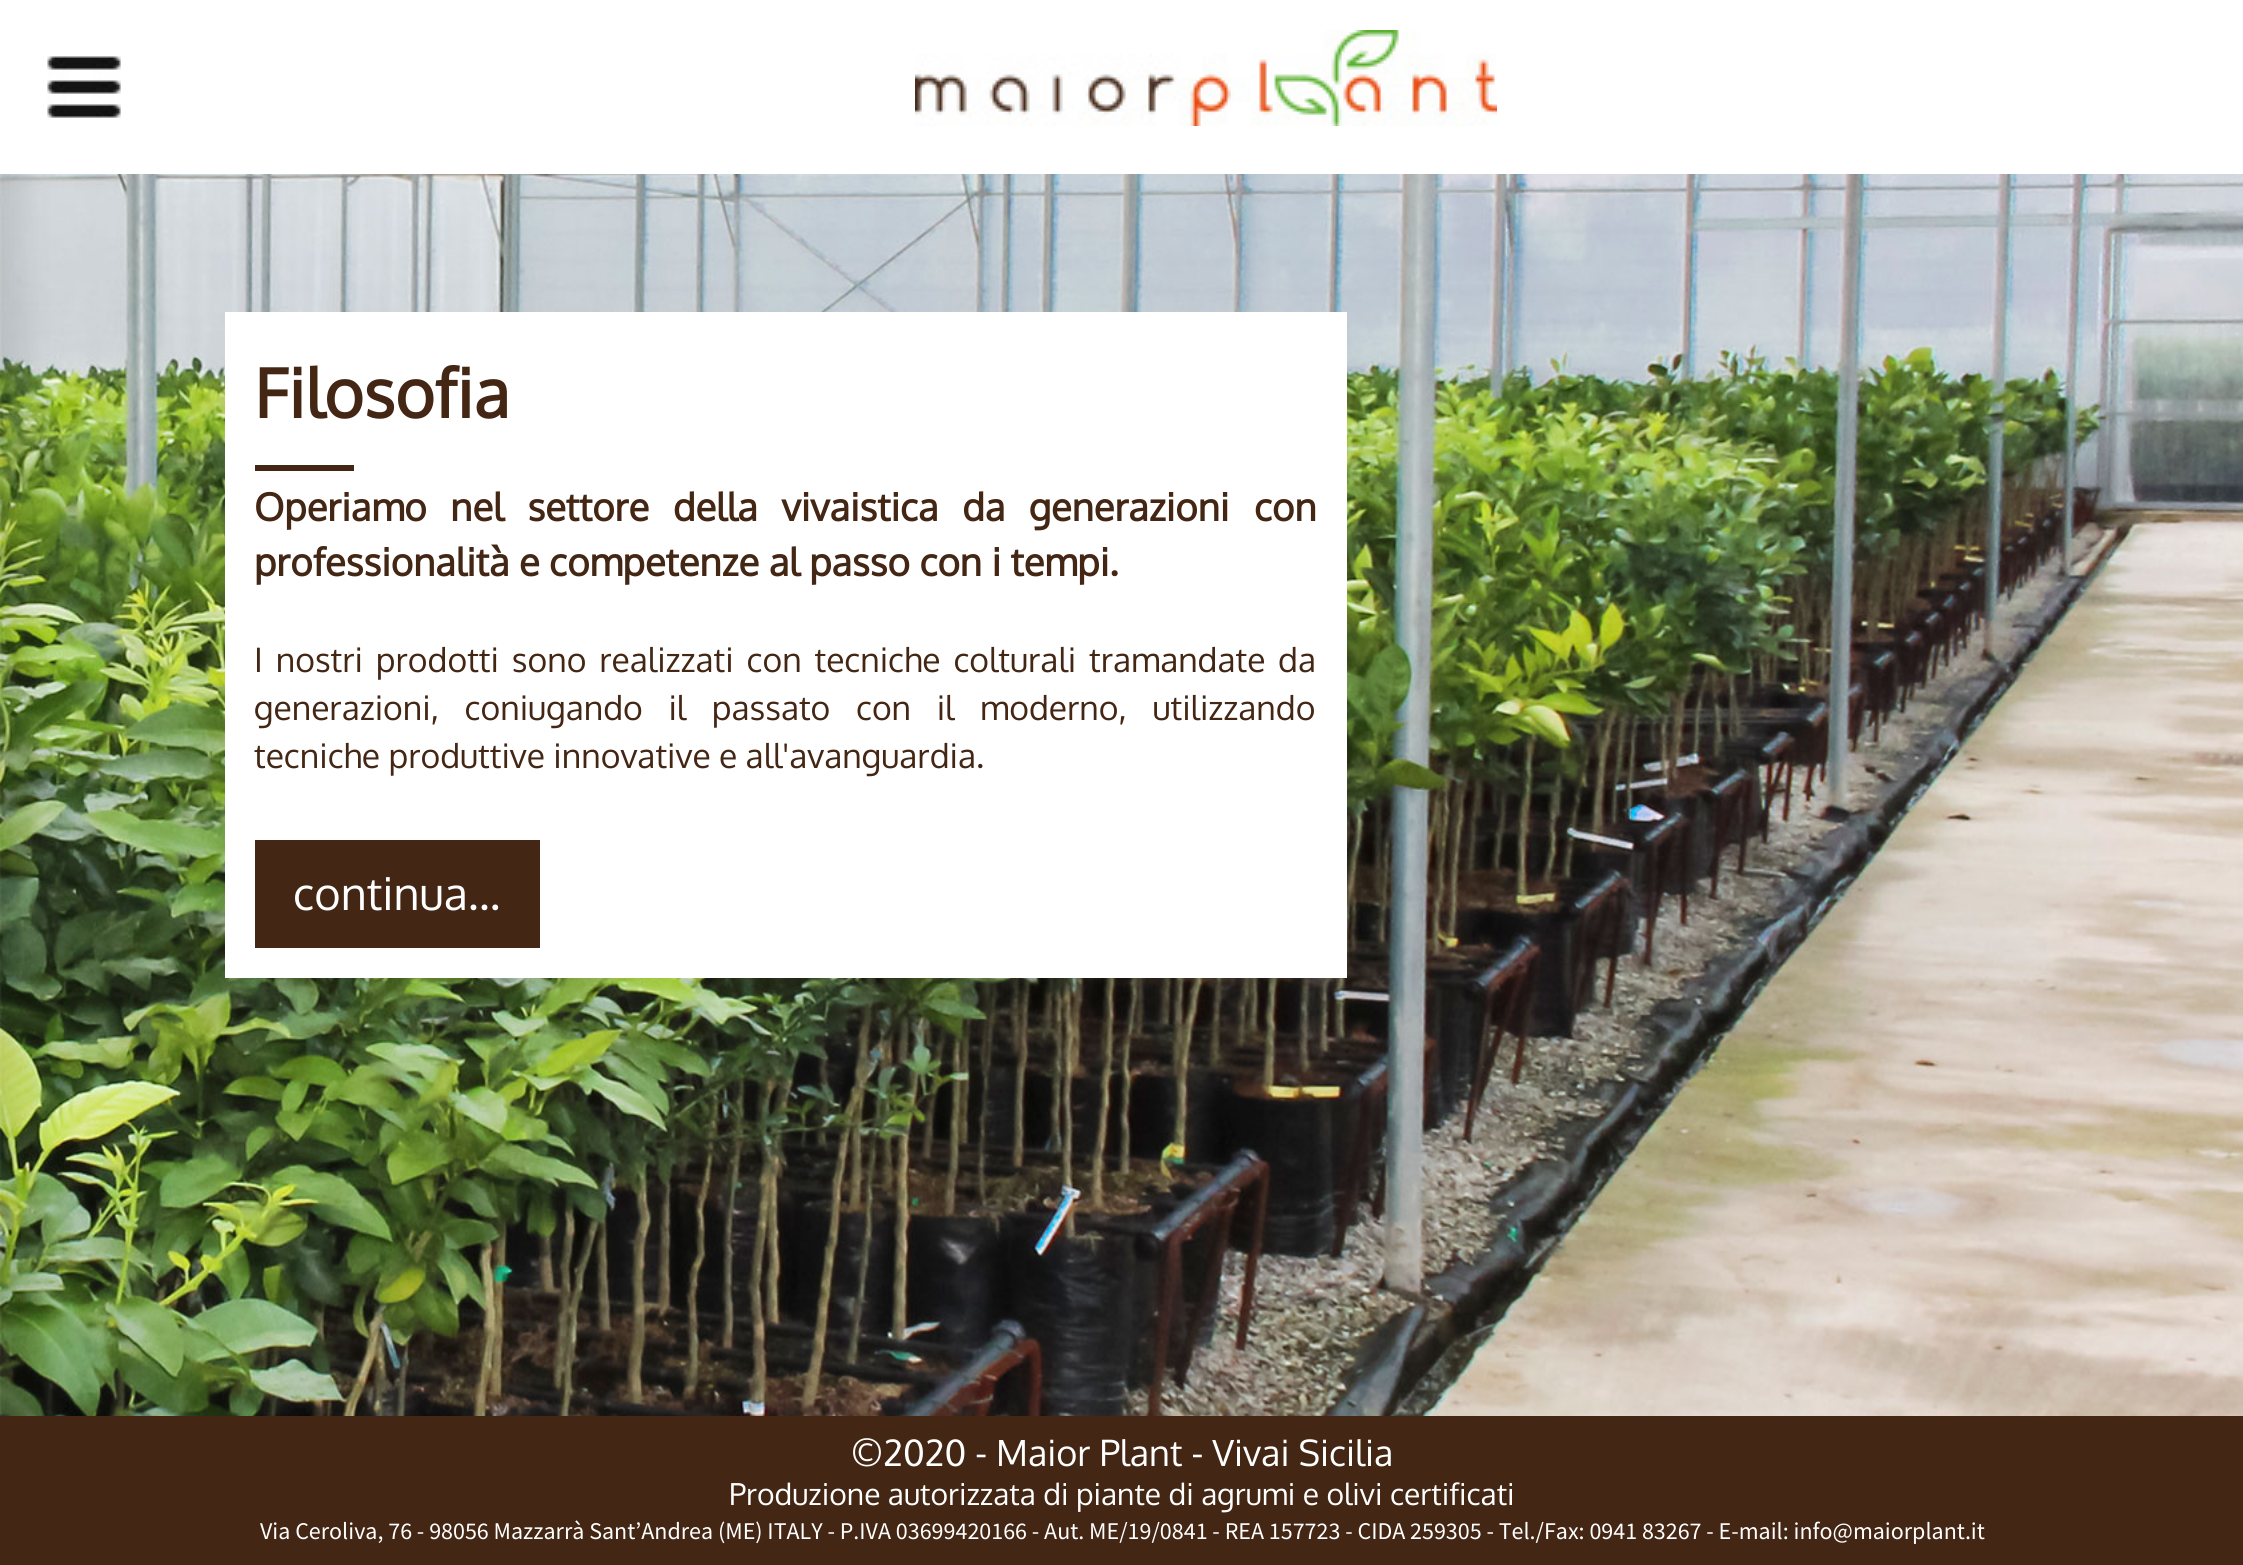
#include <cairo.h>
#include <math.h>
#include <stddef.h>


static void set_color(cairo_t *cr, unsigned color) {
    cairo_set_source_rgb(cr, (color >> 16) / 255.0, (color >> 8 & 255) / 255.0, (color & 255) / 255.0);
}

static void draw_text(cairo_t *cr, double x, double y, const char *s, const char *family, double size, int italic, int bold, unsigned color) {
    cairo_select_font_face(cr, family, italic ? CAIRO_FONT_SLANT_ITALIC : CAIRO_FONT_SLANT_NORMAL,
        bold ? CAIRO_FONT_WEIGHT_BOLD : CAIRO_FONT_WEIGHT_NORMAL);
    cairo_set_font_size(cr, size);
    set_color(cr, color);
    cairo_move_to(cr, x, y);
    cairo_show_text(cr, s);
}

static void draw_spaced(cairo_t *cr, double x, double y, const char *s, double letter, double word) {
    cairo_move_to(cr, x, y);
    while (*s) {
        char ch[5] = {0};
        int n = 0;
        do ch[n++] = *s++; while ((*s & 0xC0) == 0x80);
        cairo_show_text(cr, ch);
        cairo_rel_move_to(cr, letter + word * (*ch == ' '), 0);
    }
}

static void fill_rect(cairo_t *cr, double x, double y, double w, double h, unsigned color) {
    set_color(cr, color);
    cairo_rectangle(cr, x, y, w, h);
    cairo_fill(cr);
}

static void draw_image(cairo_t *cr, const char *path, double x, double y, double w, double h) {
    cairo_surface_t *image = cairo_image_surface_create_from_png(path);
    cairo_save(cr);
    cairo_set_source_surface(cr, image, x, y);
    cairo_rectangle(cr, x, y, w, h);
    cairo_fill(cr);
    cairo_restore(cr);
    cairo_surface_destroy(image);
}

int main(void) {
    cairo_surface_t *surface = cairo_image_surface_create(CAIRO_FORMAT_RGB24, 2243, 1565);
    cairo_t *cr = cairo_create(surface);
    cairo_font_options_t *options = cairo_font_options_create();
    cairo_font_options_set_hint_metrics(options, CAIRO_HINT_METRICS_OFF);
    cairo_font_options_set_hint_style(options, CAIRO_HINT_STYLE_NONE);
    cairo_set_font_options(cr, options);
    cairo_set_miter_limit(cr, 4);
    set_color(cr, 0xFFFFFF);
    cairo_paint(cr);
    draw_image(cr, "assets/img1.png", 47, 56, 74, 62);
    draw_image(cr, "assets/img2.png", 915, 30, 582, 96);
    draw_image(cr, "assets/img3.png", 0, 174, 2243, 1242);
    fill_rect(cr, 225, 312, 1122, 666, 0xFFFFFF);
    draw_text(cr, 254, 418, "Filosofia", "Oxygen", 67.5, 0, 1, 0x432614);
    fill_rect(cr, 255, 465, 99, 6, 0x432614);
    cairo_set_font_size(cr, 38.15);
    draw_spaced(cr, 254, 521, "Operiamo nel settore della vivaistica da generazioni", 0, 14.25);
    draw_text(cr, 1254, 521, "con", "Oxygen", 38.15, 0, 1, 0x432614);
    draw_text(cr, 254, 576, "professionalità e competenze al passo con i tempi.", "Oxygen", 38.15, 0, 1, 0x432614);
    cairo_select_font_face(cr, "Oxygen", CAIRO_FONT_SLANT_NORMAL, CAIRO_FONT_WEIGHT_NORMAL);
    cairo_set_font_size(cr, 33.65);
    draw_spaced(cr, 254, 672, "I nostri prodotti sono realizzati con tecniche colturali tramandate", 0, 4.5);
    draw_text(cr, 1278, 672, "da", "Oxygen", 33.65, 0, 0, 0x432614);
    draw_spaced(cr, 254, 720, "generazioni, coniugando il passato con il moderno, utilizzando", 0, 17.25);
    draw_text(cr, 254, 768, "tecniche produttive innovative e all'avanguardia.", "Oxygen", 33.65, 0, 0, 0x432614);
    fill_rect(cr, 255, 840, 285, 108, 0x432614);
    draw_text(cr, 293, 910, "continua...", "Oxygen", 45, 0, 0, 0xFFFFFF);
    fill_rect(cr, 0, 1416, 2243, 149, 0x432614);
    draw_text(cr, 851, 1466, "©2020 - Maior Plant - Vivai Sicilia", "Oxygen", 36, 0, 0, 0xFFFFFF);
    draw_text(cr, 729, 1505, "Produzione autorizzata di piante di agrumi e olivi certificati", "Oxygen", 30, 0, 0, 0xFFFFFF);
    draw_text(cr, 260, 1539, "Via Ceroliva, 76 - 98056 Mazzarrà Sant’Andrea (ME) ITALY - P.IVA 03699420166 - Aut. ME/19/0841 - REA 157723 - CIDA 259305 - Tel./Fax: 0941 83267 - E-mail: info@maiorplant.it", "Source Sans Pro", 24, 0, 0, 0xFFFFFF);
    cairo_surface_write_to_png(surface, "output.png");
    cairo_font_options_destroy(options);
    cairo_destroy(cr);
    cairo_surface_destroy(surface);
    return 0;
}
